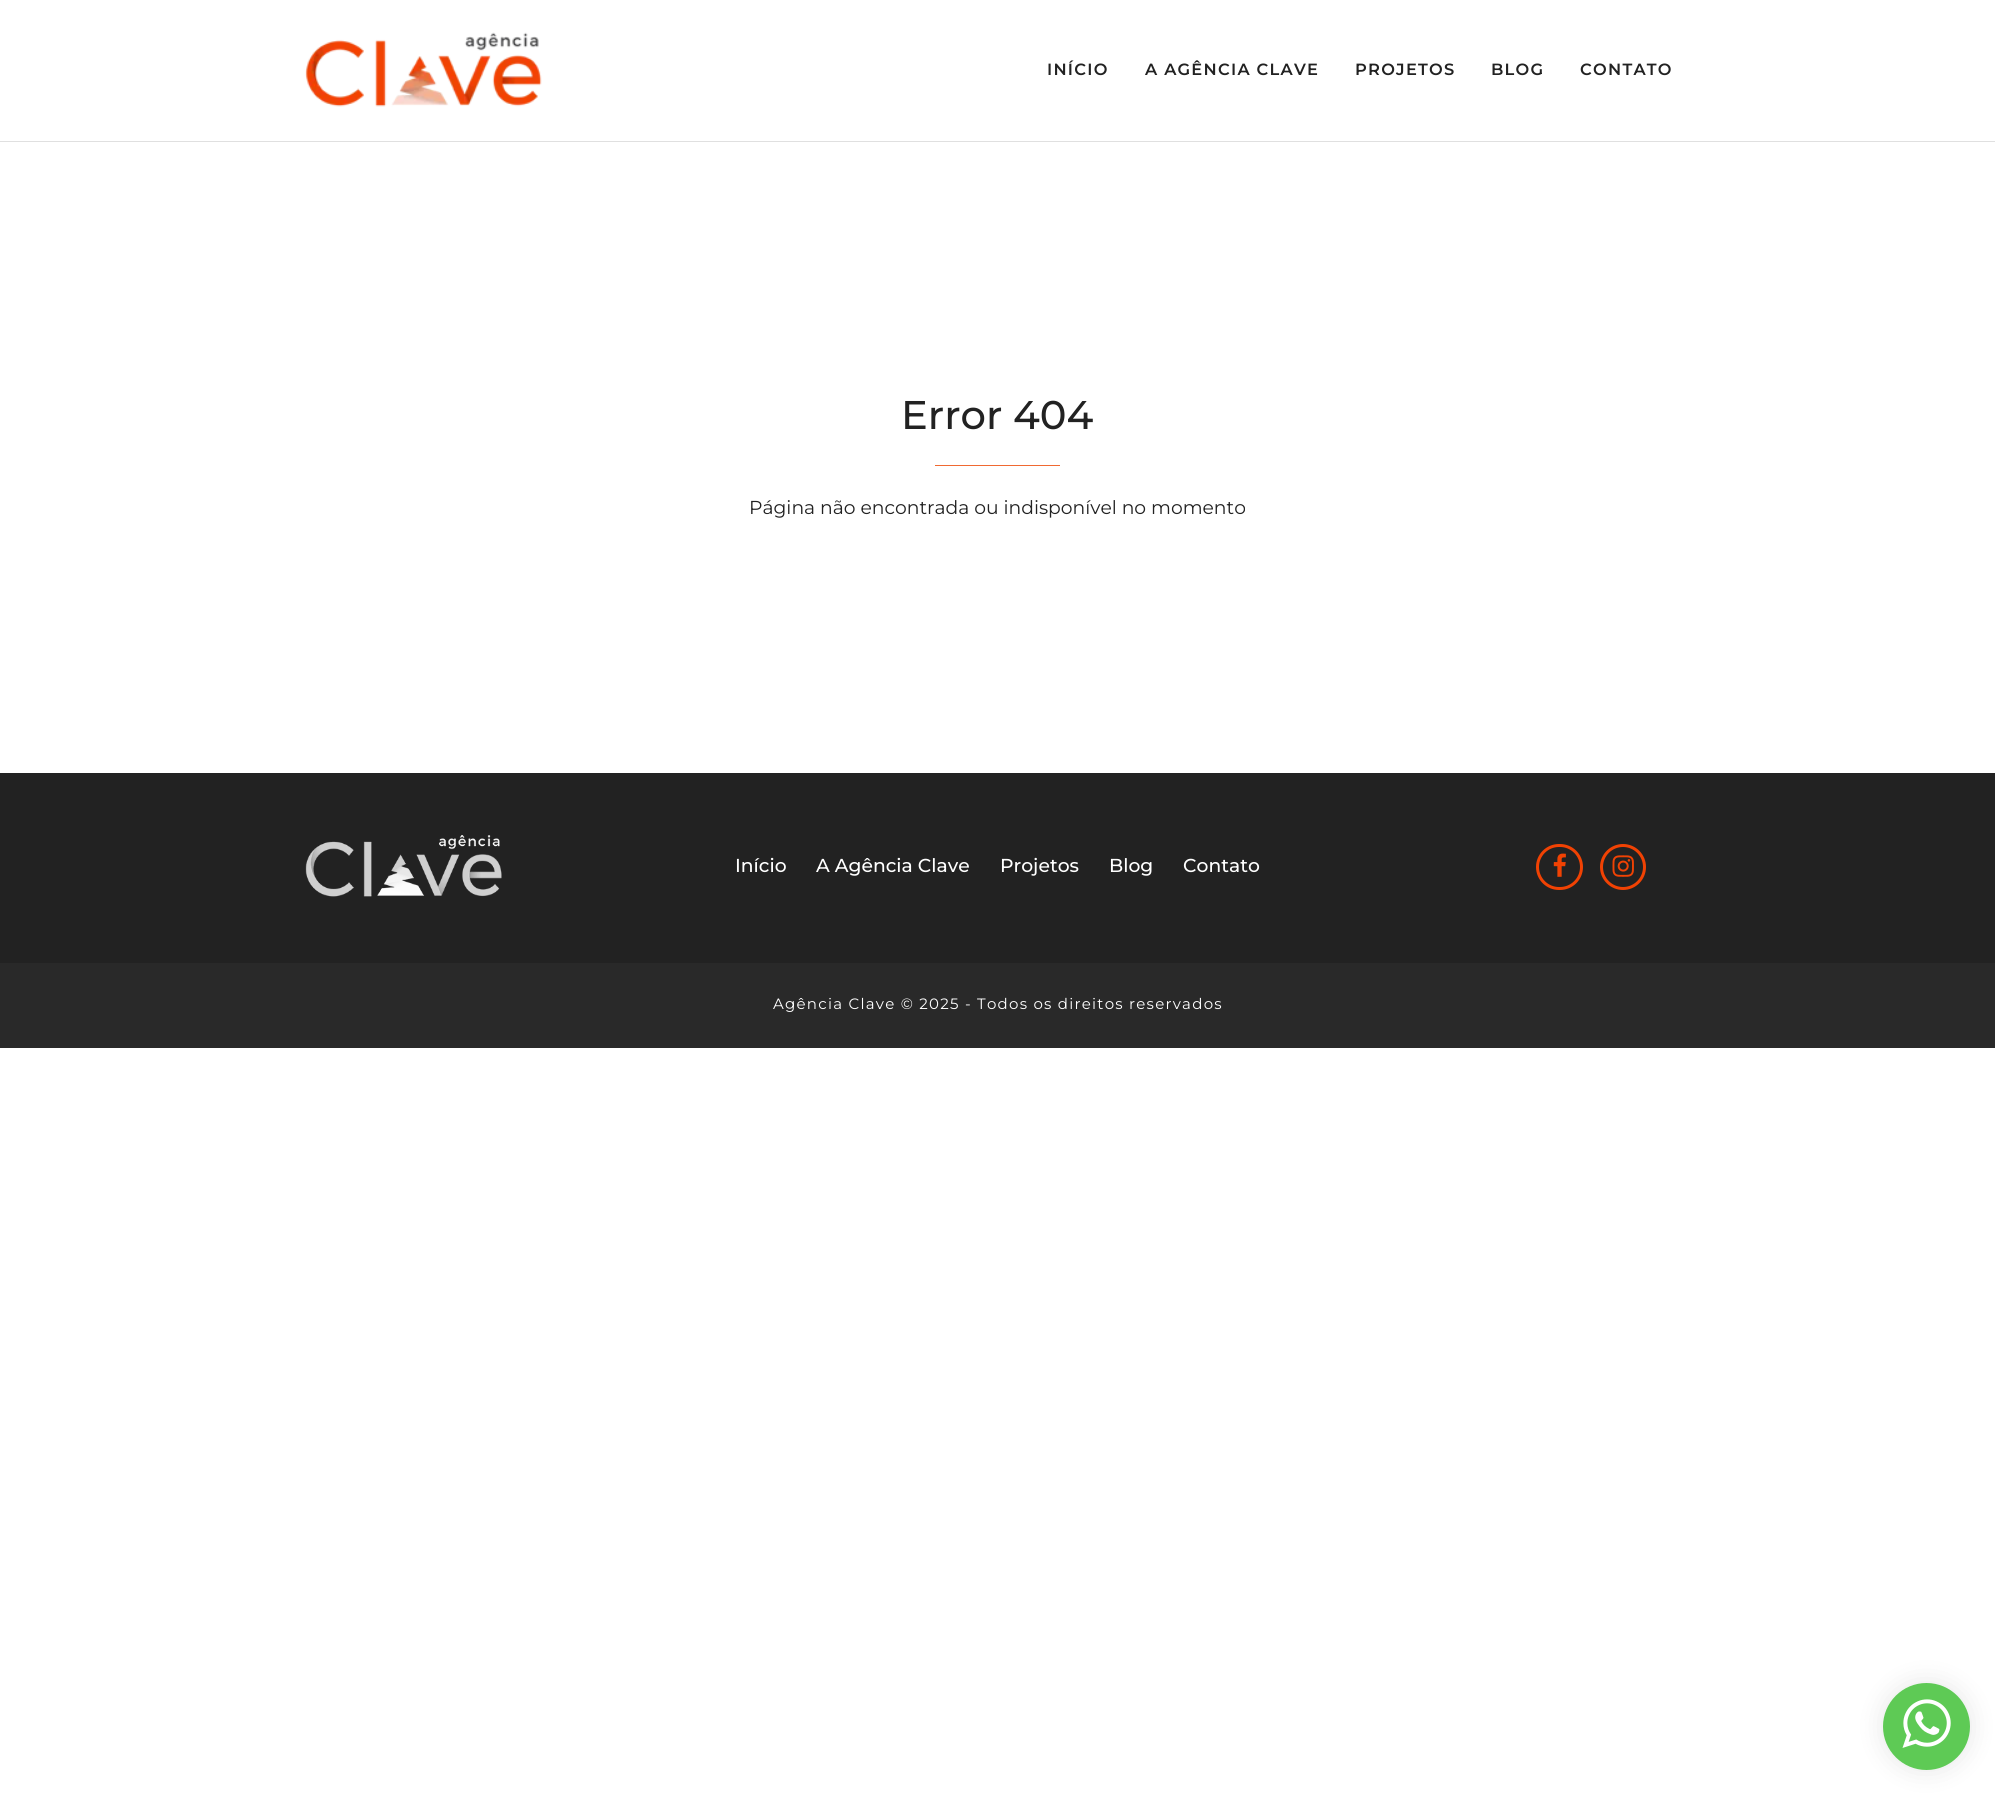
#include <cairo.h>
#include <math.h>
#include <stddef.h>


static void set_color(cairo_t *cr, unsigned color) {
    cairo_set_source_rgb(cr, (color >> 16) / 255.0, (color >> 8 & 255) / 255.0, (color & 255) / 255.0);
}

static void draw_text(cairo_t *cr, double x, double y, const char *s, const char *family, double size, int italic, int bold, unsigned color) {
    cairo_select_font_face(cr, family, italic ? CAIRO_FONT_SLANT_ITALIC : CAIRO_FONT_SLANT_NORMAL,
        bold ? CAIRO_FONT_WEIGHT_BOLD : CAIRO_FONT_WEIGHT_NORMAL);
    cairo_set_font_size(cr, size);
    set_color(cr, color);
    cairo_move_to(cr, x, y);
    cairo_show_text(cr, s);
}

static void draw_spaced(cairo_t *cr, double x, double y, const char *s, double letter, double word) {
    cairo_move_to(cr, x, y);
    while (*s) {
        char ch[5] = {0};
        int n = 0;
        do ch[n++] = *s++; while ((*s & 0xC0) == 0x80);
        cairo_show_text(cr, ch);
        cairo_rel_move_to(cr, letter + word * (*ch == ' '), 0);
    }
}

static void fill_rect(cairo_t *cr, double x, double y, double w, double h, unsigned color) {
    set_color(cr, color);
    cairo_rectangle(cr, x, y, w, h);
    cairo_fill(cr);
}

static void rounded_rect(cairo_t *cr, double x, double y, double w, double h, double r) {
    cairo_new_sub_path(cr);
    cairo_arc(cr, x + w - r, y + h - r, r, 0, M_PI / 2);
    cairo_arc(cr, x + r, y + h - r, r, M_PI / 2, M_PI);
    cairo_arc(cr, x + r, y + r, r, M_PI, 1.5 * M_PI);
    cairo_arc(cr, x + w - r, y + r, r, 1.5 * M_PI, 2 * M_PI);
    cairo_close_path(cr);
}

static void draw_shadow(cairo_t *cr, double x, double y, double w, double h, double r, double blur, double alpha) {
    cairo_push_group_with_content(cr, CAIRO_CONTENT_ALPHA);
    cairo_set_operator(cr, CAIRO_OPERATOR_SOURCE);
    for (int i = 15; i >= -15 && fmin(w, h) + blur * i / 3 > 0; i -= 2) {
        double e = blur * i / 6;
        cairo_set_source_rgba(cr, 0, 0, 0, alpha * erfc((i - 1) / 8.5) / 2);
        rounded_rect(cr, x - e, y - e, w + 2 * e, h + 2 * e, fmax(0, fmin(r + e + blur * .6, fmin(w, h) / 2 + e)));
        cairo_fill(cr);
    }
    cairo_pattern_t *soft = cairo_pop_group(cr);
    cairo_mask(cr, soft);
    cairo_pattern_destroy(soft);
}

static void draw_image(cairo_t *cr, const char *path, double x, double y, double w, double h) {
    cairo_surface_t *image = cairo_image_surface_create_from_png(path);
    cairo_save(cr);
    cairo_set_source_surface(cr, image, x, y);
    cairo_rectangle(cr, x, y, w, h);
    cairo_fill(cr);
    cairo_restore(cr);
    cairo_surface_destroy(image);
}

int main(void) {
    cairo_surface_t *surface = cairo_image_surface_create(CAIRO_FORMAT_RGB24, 1995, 1801);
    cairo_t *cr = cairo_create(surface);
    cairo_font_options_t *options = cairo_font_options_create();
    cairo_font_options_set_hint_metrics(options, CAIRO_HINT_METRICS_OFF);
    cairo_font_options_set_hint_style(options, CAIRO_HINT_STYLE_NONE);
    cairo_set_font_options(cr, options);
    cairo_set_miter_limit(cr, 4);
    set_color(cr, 0xFFFFFF);
    cairo_paint(cr);
    draw_image(cr, "assets/img1.png", 305, 32, 237, 75);
    cairo_select_font_face(cr, "Montserrat SemiBold", CAIRO_FONT_SLANT_NORMAL, CAIRO_FONT_WEIGHT_NORMAL);
    cairo_set_font_size(cr, 16.25);
    set_color(cr, 0x222222);
    draw_spaced(cr, 1047, 75, "INÍCIO", 1.25, 0);
    draw_spaced(cr, 1145, 75, "A AGÊNCIA CLAVE", 1.25, 0);
    draw_spaced(cr, 1355, 75, "PROJETOS", 1.25, 0);
    draw_spaced(cr, 1491, 75, "BLOG", 1.25, 0);
    draw_spaced(cr, 1580, 75, "CONTATO", 1.25, 0);
    fill_rect(cr, 0, 141, 1995, 1, 0xE0E0E0);
    draw_text(cr, 901, 429, "Error 404", "Montserrat Medium", 40, 0, 0, 0x222222);
    fill_rect(cr, 935, 465, 125, 1, 0xF06932);
    draw_text(cr, 749, 514, "Página não encontrada ou indisponível no momento", "Montserrat", 18.75, 0, 0, 0x222222);
    fill_rect(cr, 0, 773, 1995, 190, 0x222222);
    draw_image(cr, "assets/img2.png", 305, 835, 197, 62);
    draw_text(cr, 735, 872, "Início", "Montserrat Medium", 18.75, 0, 0, 0xFFFFFF);
    draw_text(cr, 816, 872, "A Agência Clave", "Montserrat Medium", 18.75, 0, 0, 0xFFFFFF);
    draw_text(cr, 1000, 872, "Projetos", "Montserrat Medium", 18.75, 0, 0, 0xFFFFFF);
    draw_text(cr, 1109, 872, "Blog", "Montserrat Medium", 18.75, 0, 0, 0xFFFFFF);
    draw_text(cr, 1183, 872, "Contato", "Montserrat Medium", 18.75, 0, 0, 0xFFFFFF);
    rounded_rect(cr, 1537.5, 845.5, 44, 43, 21.5);
    set_color(cr, 0xF14203);
    cairo_set_line_width(cr, 3);
    cairo_stroke(cr);
    draw_image(cr, "assets/img3.png", 1553, 853, 13, 24);
    cairo_arc(cr, 1623, 867, 21.5, 0, 2 * M_PI);
    cairo_stroke(cr);
    draw_image(cr, "assets/img4.png", 1612, 855, 22, 22);
    fill_rect(cr, 0, 963, 1995, 85, 0x292929);
    cairo_select_font_face(cr, "Montserrat", CAIRO_FONT_SLANT_NORMAL, CAIRO_FONT_WEIGHT_NORMAL);
    cairo_set_font_size(cr, 15);
    set_color(cr, 0xFFFFFF);
    draw_spaced(cr, 773, 1009, "Agência Clave © 2025 - Todos os direitos reservados", 1.25, 0);
    set_color(cr, 0x000000);
    draw_shadow(cr, 1883, 1683, 87, 87, 43.5, 12.5, 0.1);
    set_color(cr, 0x5ECA55);
    cairo_arc(cr, 1926.5, 1726.5, 43.5, 0, 2 * M_PI);
    cairo_fill(cr);
    draw_image(cr, "assets/img5.png", 1902, 1699, 49, 49);
    cairo_surface_write_to_png(surface, "output.png");
    cairo_font_options_destroy(options);
    cairo_destroy(cr);
    cairo_surface_destroy(surface);
    return 0;
}
